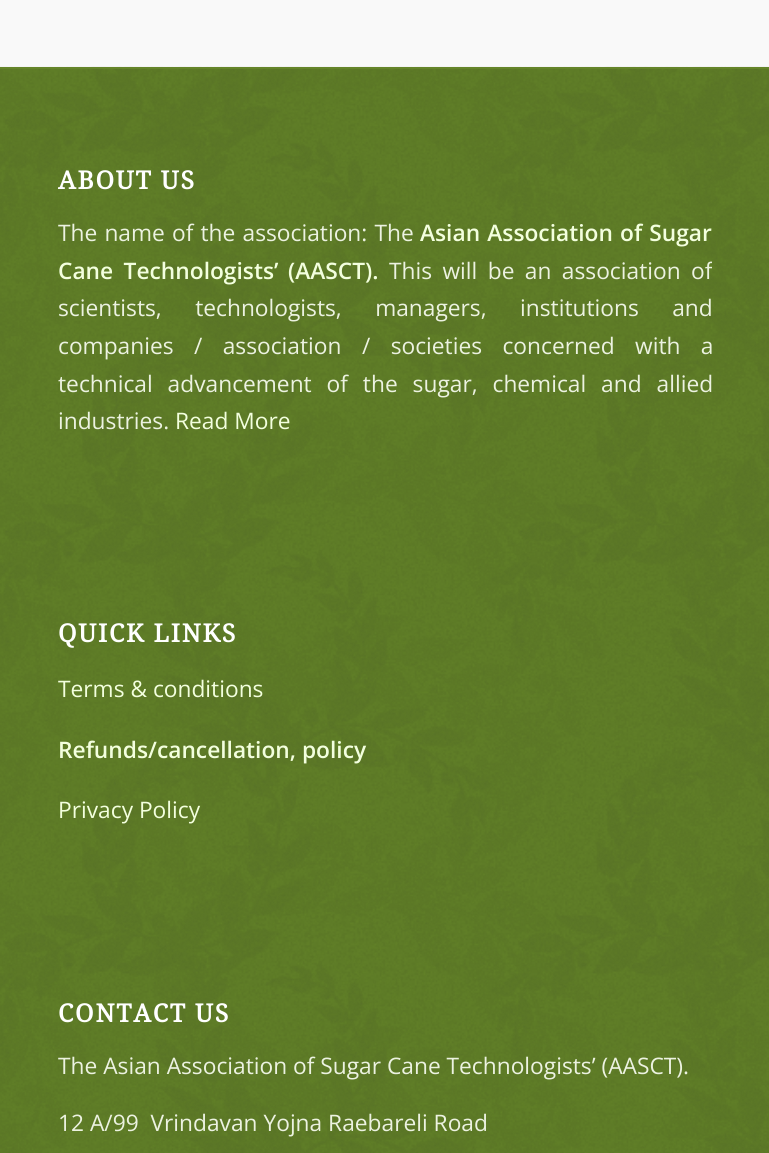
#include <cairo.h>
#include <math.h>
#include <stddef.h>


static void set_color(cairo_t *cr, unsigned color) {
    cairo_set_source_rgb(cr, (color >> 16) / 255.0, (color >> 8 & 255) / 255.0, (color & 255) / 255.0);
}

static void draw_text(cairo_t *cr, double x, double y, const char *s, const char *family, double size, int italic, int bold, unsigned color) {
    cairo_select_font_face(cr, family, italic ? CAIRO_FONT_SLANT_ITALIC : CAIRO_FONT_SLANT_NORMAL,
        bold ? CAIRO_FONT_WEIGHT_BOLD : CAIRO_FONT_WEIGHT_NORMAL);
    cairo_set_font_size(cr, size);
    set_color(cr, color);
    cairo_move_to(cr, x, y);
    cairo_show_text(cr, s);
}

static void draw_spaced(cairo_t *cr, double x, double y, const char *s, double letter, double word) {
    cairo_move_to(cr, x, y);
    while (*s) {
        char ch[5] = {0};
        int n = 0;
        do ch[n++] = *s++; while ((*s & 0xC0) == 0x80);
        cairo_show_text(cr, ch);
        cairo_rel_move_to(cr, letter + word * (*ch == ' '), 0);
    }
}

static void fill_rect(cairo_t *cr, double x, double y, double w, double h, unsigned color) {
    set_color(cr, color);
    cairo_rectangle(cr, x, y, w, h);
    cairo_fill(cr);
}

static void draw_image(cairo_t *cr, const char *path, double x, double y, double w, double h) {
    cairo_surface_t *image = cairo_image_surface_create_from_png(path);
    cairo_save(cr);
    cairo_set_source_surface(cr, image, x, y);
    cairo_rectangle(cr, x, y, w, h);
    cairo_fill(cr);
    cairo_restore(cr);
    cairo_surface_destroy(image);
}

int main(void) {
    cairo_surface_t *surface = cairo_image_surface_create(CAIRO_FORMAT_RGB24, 769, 1153);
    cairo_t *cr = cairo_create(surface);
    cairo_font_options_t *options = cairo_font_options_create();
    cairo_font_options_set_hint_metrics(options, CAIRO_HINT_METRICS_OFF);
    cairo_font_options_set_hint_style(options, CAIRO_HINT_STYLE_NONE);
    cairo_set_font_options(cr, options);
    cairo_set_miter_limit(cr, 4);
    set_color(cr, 0xF9F9F9);
    cairo_paint(cr);
    fill_rect(cr, 0, 69, 769, 1084, 0x658529);
    draw_image(cr, "assets/img1.png", 0, 66, 769, 1087);
    fill_rect(cr, 0, 67, 769, 2, 0x658529);
    cairo_select_font_face(cr, "Droid Serif", CAIRO_FONT_SLANT_NORMAL, CAIRO_FONT_WEIGHT_BOLD);
    cairo_set_font_size(cr, 25);
    set_color(cr, 0xFFFFFF);
    draw_spaced(cr, 58, 189, "ABOUT US", 1.75, 0);
    cairo_select_font_face(cr, "Open Sans", CAIRO_FONT_SLANT_NORMAL, CAIRO_FONT_WEIGHT_NORMAL);
    cairo_set_font_size(cr, 22.75);
    set_color(cr, 0xECF2E1);
    draw_spaced(cr, 58, 241, "The name of the association: The", 0, 1.25);
    cairo_select_font_face(cr, "Open Sans SemiBold", CAIRO_FONT_SLANT_NORMAL, CAIRO_FONT_WEIGHT_NORMAL);
    set_color(cr, 0xF3FFDE);
    draw_spaced(cr, 420, 241, "Asian Association of Sugar", 0, 1.25);
    draw_spaced(cr, 58, 279, "Cane Technologists’", 0, 4.5);
    draw_text(cr, 288, 279, "(AASCT).", "Open Sans SemiBold", 22.75, 0, 0, 0xF3FFDE);
    cairo_save(cr);
    cairo_rectangle(cr, 58, 147, 654, 313);
    cairo_clip(cr);
    cairo_select_font_face(cr, "Open Sans", CAIRO_FONT_SLANT_NORMAL, CAIRO_FONT_WEIGHT_NORMAL);
    set_color(cr, 0xECF2E1);
    draw_spaced(cr, 389, 279, "This will be an association of", 0, 4.5);
    cairo_restore(cr);
    cairo_select_font_face(cr, "Open Sans", CAIRO_FONT_SLANT_NORMAL, CAIRO_FONT_WEIGHT_NORMAL);
    set_color(cr, 0xECF2E1);
    draw_spaced(cr, 58, 316, "scientists, technologists, managers, institutions and", 0, 27.5);
    draw_spaced(cr, 58, 354, "companies / association / societies concerned with a", 0, 14.5);
    draw_spaced(cr, 58, 392, "technical advancement of the sugar, chemical and allied", 0, 9);
    draw_text(cr, 58, 429, "industries.", "Open Sans", 22.75, 0, 0, 0xECF2E1);
    draw_text(cr, 175, 429, "Read More", "Open Sans", 22.75, 0, 0, 0xF3FFDE);
    cairo_select_font_face(cr, "Droid Serif", CAIRO_FONT_SLANT_NORMAL, CAIRO_FONT_WEIGHT_BOLD);
    cairo_set_font_size(cr, 25);
    set_color(cr, 0xFFFFFF);
    draw_spaced(cr, 58, 642, "QUICK LINKS", 1.75, 0);
    draw_text(cr, 58, 697, "Terms & conditions", "Open Sans", 22.75, 0, 0, 0xF3FFDE);
    draw_text(cr, 58, 758, "Refunds/cancellation, policy", "Open Sans SemiBold", 22.75, 0, 0, 0xF3FFDE);
    draw_text(cr, 58, 818, "Privacy Policy", "Open Sans", 22.75, 0, 0, 0xF3FFDE);
    cairo_select_font_face(cr, "Droid Serif", CAIRO_FONT_SLANT_NORMAL, CAIRO_FONT_WEIGHT_BOLD);
    cairo_set_font_size(cr, 25);
    set_color(cr, 0xFFFFFF);
    draw_spaced(cr, 58, 1022, "CONTACT US", 1.75, 0);
    draw_text(cr, 58, 1074, "The Asian Association of Sugar Cane Technologists’ (AASCT).", "Open Sans", 22.75, 0, 0, 0xECF2E1);
    draw_text(cr, 58, 1131, "12 A/99  Vrindavan Yojna Raebareli Road", "Open Sans", 22.75, 0, 0, 0xECF2E1);
    cairo_surface_write_to_png(surface, "output.png");
    cairo_font_options_destroy(options);
    cairo_destroy(cr);
    cairo_surface_destroy(surface);
    return 0;
}
